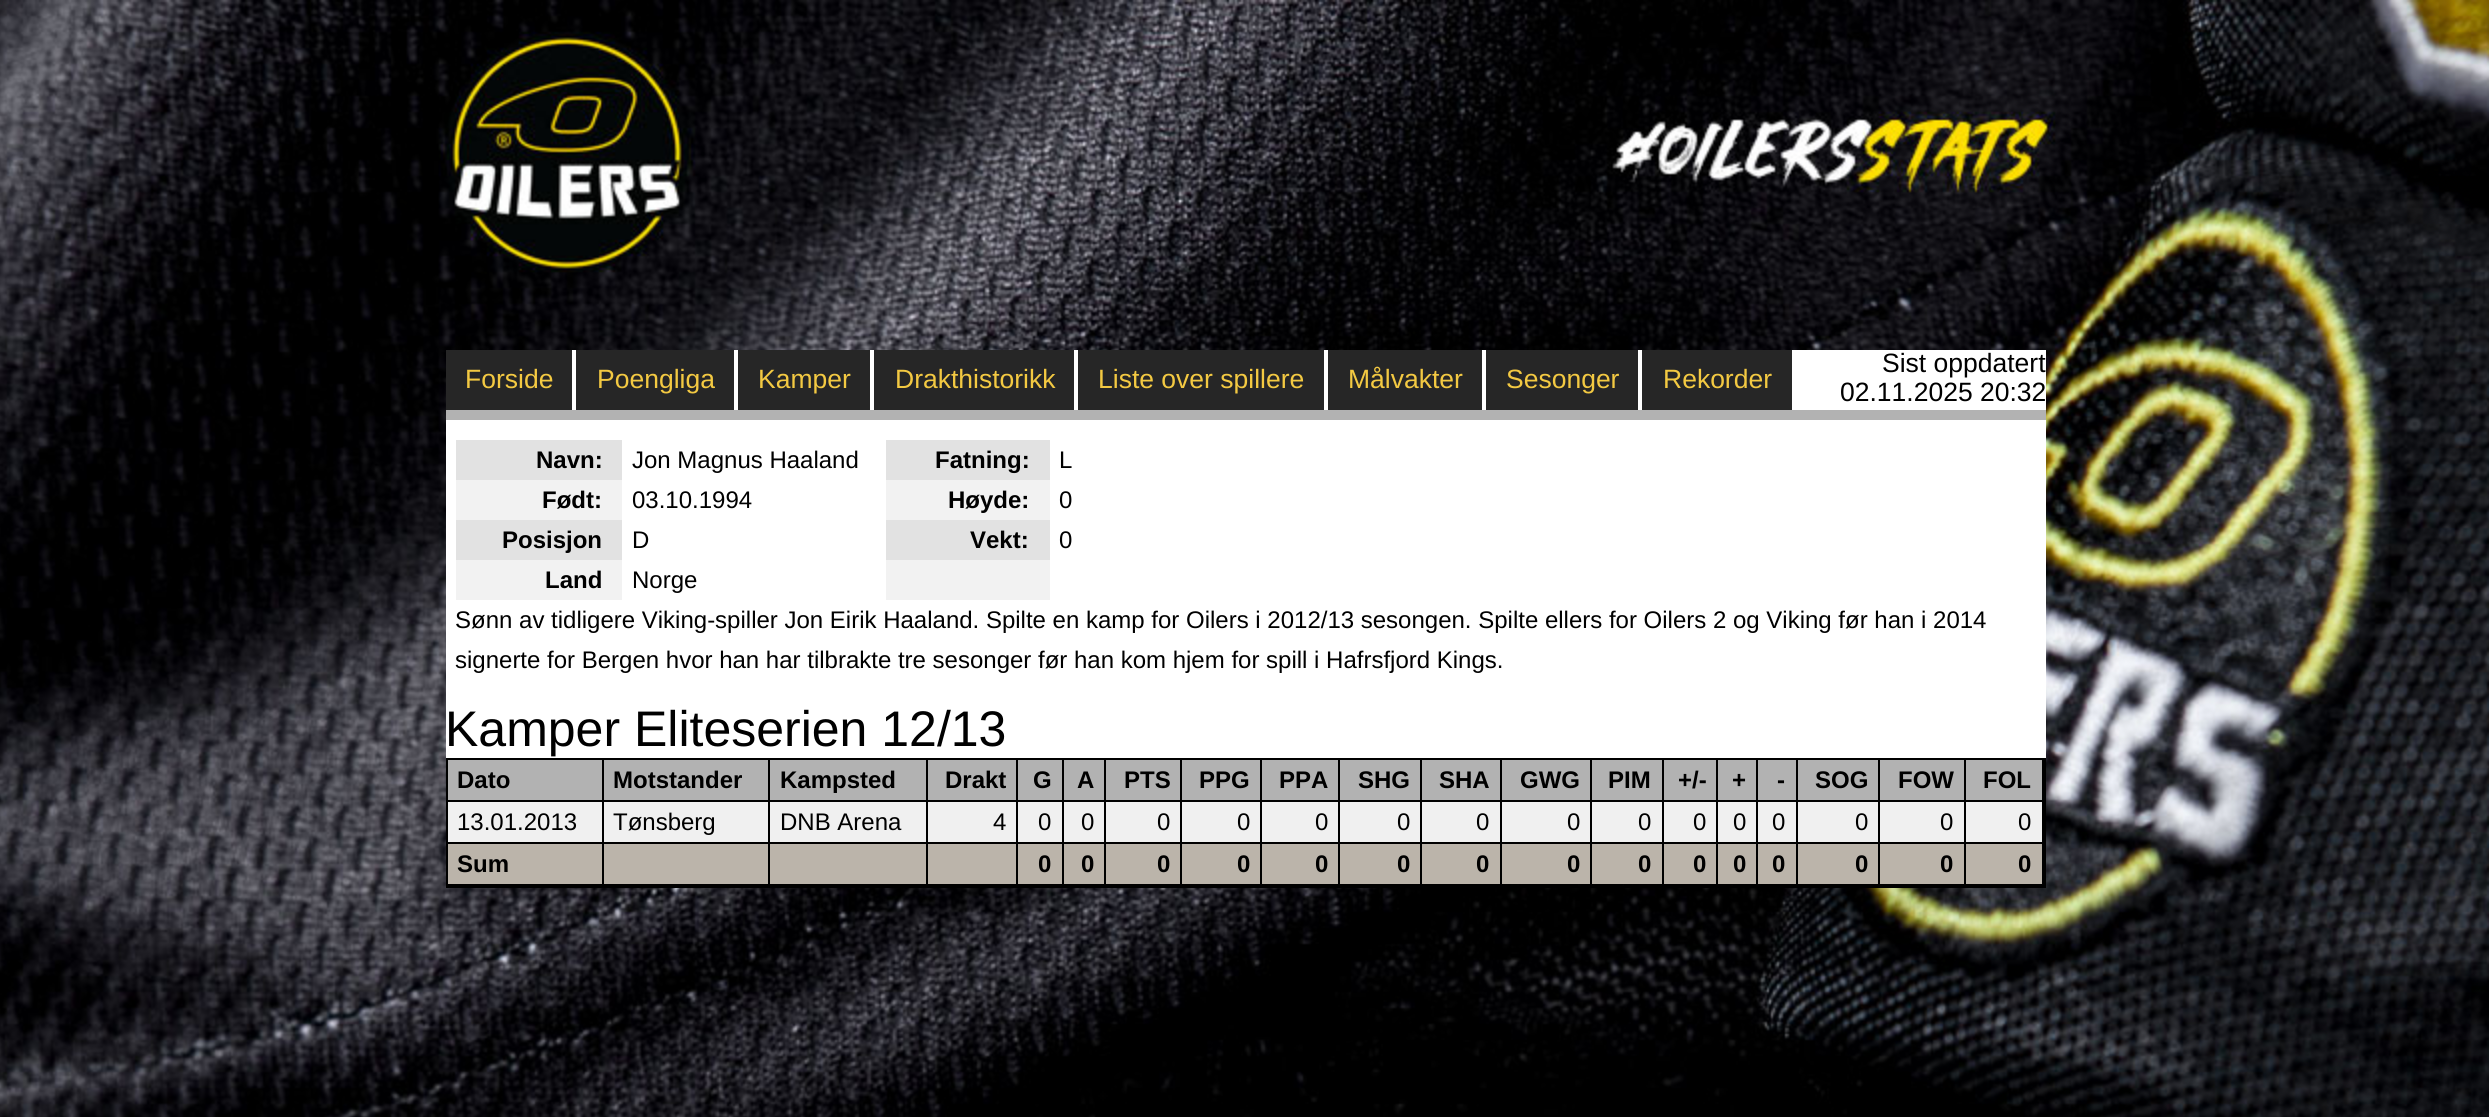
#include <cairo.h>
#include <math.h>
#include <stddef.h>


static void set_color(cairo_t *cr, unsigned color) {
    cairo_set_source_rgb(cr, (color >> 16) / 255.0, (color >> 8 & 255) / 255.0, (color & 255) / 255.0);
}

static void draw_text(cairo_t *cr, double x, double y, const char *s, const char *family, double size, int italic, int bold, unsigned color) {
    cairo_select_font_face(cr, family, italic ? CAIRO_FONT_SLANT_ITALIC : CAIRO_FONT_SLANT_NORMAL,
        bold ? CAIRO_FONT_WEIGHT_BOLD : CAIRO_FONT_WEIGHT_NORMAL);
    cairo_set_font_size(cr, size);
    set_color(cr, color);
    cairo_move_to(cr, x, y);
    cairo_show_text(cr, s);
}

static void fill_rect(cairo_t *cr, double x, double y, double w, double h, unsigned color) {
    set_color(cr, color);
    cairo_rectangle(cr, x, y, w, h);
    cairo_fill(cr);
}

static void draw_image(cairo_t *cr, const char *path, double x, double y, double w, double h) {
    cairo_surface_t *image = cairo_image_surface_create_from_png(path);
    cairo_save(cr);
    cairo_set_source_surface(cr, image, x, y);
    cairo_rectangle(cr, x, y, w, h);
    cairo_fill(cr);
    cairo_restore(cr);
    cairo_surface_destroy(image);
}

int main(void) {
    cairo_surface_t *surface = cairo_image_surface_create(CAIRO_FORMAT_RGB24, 2489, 1117);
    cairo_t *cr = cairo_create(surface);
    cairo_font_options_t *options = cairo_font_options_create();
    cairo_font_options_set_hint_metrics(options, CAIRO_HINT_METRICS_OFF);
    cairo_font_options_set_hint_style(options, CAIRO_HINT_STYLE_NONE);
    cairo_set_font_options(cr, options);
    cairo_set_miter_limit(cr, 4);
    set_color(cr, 0xFFFFFF);
    cairo_paint(cr);
    draw_image(cr, "assets/img1.png", 0, 0, 2489, 1117);
    fill_rect(cr, 446, 350, 1600, 408, 0xFFFFFF);
    fill_rect(cr, 446, 410, 1600, 10, 0xB2B2B2);
    fill_rect(cr, 446, 350, 126, 60, 0x262626);
    draw_text(cr, 465, 388, "Forside", "Liberation Sans", 26.5, 0, 0, 0xF3C942);
    fill_rect(cr, 576, 350, 158, 60, 0x262626);
    draw_text(cr, 597, 388, "Poengliga", "Liberation Sans", 26.5, 0, 0, 0xF3C942);
    fill_rect(cr, 738, 350, 132, 60, 0x262626);
    draw_text(cr, 758, 388, "Kamper", "Liberation Sans", 26.5, 0, 0, 0xF3C942);
    fill_rect(cr, 874, 350, 200, 60, 0x262626);
    draw_text(cr, 895, 388, "Drakthistorikk", "Liberation Sans", 26.5, 0, 0, 0xF3C942);
    fill_rect(cr, 1078, 350, 246, 60, 0x262626);
    draw_text(cr, 1098, 388, "Liste over spillere", "Liberation Sans", 26.5, 0, 0, 0xF3C942);
    fill_rect(cr, 1328, 350, 154, 60, 0x262626);
    draw_text(cr, 1348, 388, "Målvakter", "Liberation Sans", 26.5, 0, 0, 0xF3C942);
    fill_rect(cr, 1486, 350, 152, 60, 0x262626);
    draw_text(cr, 1506, 388, "Sesonger", "Liberation Sans", 26.5, 0, 0, 0xF3C942);
    fill_rect(cr, 1642, 350, 150, 60, 0x262626);
    draw_text(cr, 1663, 388, "Rekorder", "Liberation Sans", 26.5, 0, 0, 0xF3C942);
    draw_text(cr, 1882, 372, "Sist oppdatert", "Liberation Sans", 26.5, 0, 0, 0x000000);
    draw_text(cr, 1840, 401, "02.11.2025 20:32", "Liberation Sans", 26.5, 0, 0, 0x000000);
    fill_rect(cr, 456, 440, 166, 40, 0xE2E2E2);
    draw_text(cr, 536, 468, "Navn:", "Liberation Sans", 24, 0, 1, 0x000000);
    draw_text(cr, 632, 468, "Jon Magnus Haaland", "Liberation Sans", 24, 0, 0, 0x000000);
    fill_rect(cr, 886, 440, 164, 40, 0xE2E2E2);
    draw_text(cr, 935, 468, "Fatning:", "Liberation Sans", 24, 0, 1, 0x000000);
    draw_text(cr, 1059, 468, "L", "Liberation Sans", 24, 0, 0, 0x000000);
    fill_rect(cr, 456, 480, 166, 40, 0xF2F2F2);
    draw_text(cr, 542, 508, "Født:", "Liberation Sans", 24, 0, 1, 0x000000);
    draw_text(cr, 632, 508, "03.10.1994", "Liberation Sans", 24, 0, 0, 0x000000);
    fill_rect(cr, 886, 480, 164, 40, 0xF2F2F2);
    draw_text(cr, 948, 508, "Høyde:", "Liberation Sans", 24, 0, 1, 0x000000);
    draw_text(cr, 1059, 508, "0", "Liberation Sans", 24, 0, 0, 0x000000);
    fill_rect(cr, 456, 520, 166, 40, 0xE2E2E2);
    draw_text(cr, 502, 548, "Posisjon", "Liberation Sans", 24, 0, 1, 0x000000);
    draw_text(cr, 632, 548, "D", "Liberation Sans", 24, 0, 0, 0x000000);
    fill_rect(cr, 886, 520, 164, 40, 0xE2E2E2);
    draw_text(cr, 970, 548, "Vekt:", "Liberation Sans", 24, 0, 1, 0x000000);
    draw_text(cr, 1059, 548, "0", "Liberation Sans", 24, 0, 0, 0x000000);
    fill_rect(cr, 456, 560, 166, 40, 0xF2F2F2);
    draw_text(cr, 545, 588, "Land", "Liberation Sans", 24, 0, 1, 0x000000);
    draw_text(cr, 632, 588, "Norge", "Liberation Sans", 24, 0, 0, 0x000000);
    fill_rect(cr, 886, 560, 164, 40, 0xF2F2F2);
    draw_text(cr, 455, 628, "Sønn av tidligere Viking-spiller Jon Eirik Haaland. Spilte en kamp for Oilers i 2012/13 sesongen. Spilte ellers for Oilers 2 og Viking før han i 2014", "Liberation Sans", 24, 0, 0, 0x000000);
    draw_text(cr, 455, 668, "signerte for Bergen hvor han har tilbrakte tre sesonger før han kom hjem for spill i Hafrsfjord Kings.", "Liberation Sans", 24, 0, 0, 0x000000);
    draw_text(cr, 445, 746, "Kamper Eliteserien 12/13", "Liberation Sans", 50, 0, 0, 0x000000);
    cairo_rectangle(cr, 447, 759, 1598, 128);
    cairo_stroke(cr);
    fill_rect(cr, 448, 760, 154, 40, 0xB2B2B2);
    fill_rect(cr, 602, 760, 2, 42, 0x000000);
    fill_rect(cr, 448, 800, 156, 2, 0x000000);
    draw_text(cr, 457, 788, "Dato", "Liberation Sans", 24, 0, 1, 0x000000);
    fill_rect(cr, 604, 760, 164, 40, 0xB2B2B2);
    fill_rect(cr, 768, 760, 2, 42, 0x000000);
    fill_rect(cr, 604, 800, 166, 2, 0x000000);
    draw_text(cr, 613, 788, "Motstander", "Liberation Sans", 24, 0, 1, 0x000000);
    fill_rect(cr, 770, 760, 156, 40, 0xB2B2B2);
    fill_rect(cr, 926, 760, 2, 42, 0x000000);
    fill_rect(cr, 770, 800, 158, 2, 0x000000);
    draw_text(cr, 780, 788, "Kampsted", "Liberation Sans", 24, 0, 1, 0x000000);
    fill_rect(cr, 928, 760, 88, 40, 0xB2B2B2);
    fill_rect(cr, 1016, 760, 2, 42, 0x000000);
    fill_rect(cr, 928, 800, 90, 2, 0x000000);
    draw_text(cr, 945, 788, "Drakt", "Liberation Sans", 24, 0, 1, 0x000000);
    fill_rect(cr, 1018, 760, 44, 40, 0xB2B2B2);
    fill_rect(cr, 1062, 760, 2, 42, 0x000000);
    fill_rect(cr, 1018, 800, 46, 2, 0x000000);
    draw_text(cr, 1033, 788, "G", "Liberation Sans", 24, 0, 1, 0x000000);
    fill_rect(cr, 1064, 760, 40, 40, 0xB2B2B2);
    fill_rect(cr, 1104, 760, 2, 42, 0x000000);
    fill_rect(cr, 1064, 800, 42, 2, 0x000000);
    draw_text(cr, 1077, 788, "A", "Liberation Sans", 24, 0, 1, 0x000000);
    fill_rect(cr, 1106, 760, 74, 40, 0xB2B2B2);
    fill_rect(cr, 1180, 760, 2, 42, 0x000000);
    fill_rect(cr, 1106, 800, 76, 2, 0x000000);
    draw_text(cr, 1124, 788, "PTS", "Liberation Sans", 24, 0, 1, 0x000000);
    fill_rect(cr, 1182, 760, 78, 40, 0xB2B2B2);
    fill_rect(cr, 1260, 760, 2, 42, 0x000000);
    fill_rect(cr, 1182, 800, 80, 2, 0x000000);
    draw_text(cr, 1199, 788, "PPG", "Liberation Sans", 24, 0, 1, 0x000000);
    fill_rect(cr, 1262, 760, 76, 40, 0xB2B2B2);
    fill_rect(cr, 1338, 760, 2, 42, 0x000000);
    fill_rect(cr, 1262, 800, 78, 2, 0x000000);
    draw_text(cr, 1279, 788, "PPA", "Liberation Sans", 24, 0, 1, 0x000000);
    fill_rect(cr, 1340, 760, 80, 40, 0xB2B2B2);
    fill_rect(cr, 1420, 760, 2, 42, 0x000000);
    fill_rect(cr, 1340, 800, 82, 2, 0x000000);
    draw_text(cr, 1358, 788, "SHG", "Liberation Sans", 24, 0, 1, 0x000000);
    fill_rect(cr, 1422, 760, 78, 40, 0xB2B2B2);
    fill_rect(cr, 1500, 760, 2, 42, 0x000000);
    fill_rect(cr, 1422, 800, 156, 2, 0x000000);
    draw_text(cr, 1439, 788, "SHA", "Liberation Sans", 24, 0, 1, 0x000000);
    fill_rect(cr, 1502, 760, 88, 40, 0xB2B2B2);
    fill_rect(cr, 1590, 760, 2, 42, 0x000000);
    draw_text(cr, 1520, 788, "GWG", "Liberation Sans", 24, 0, 1, 0x000000);
    fill_rect(cr, 1592, 760, 70, 40, 0xB2B2B2);
    fill_rect(cr, 1662, 760, 2, 8, 0x000000);
    fill_rect(cr, 1592, 800, 7, 2, 0x000000);
    draw_text(cr, 1608, 788, "PIM", "Liberation Sans", 24, 0, 1, 0x000000);
    fill_rect(cr, 1664, 760, 52, 40, 0xB2B2B2);
    fill_rect(cr, 1716, 791, 2, 11, 0x000000);
    fill_rect(cr, 1690, 800, 13, 2, 0x000000);
    draw_text(cr, 1678, 788, "+/-", "Liberation Sans", 24, 0, 1, 0x000000);
    fill_rect(cr, 1718, 760, 38, 40, 0xB2B2B2);
    fill_rect(cr, 1756, 760, 2, 25, 0x000000);
    fill_rect(cr, 1731, 800, 9, 2, 0x000000);
    draw_text(cr, 1732, 788, "+", "Liberation Sans", 24, 0, 1, 0x000000);
    fill_rect(cr, 1758, 760, 38, 40, 0xB2B2B2);
    fill_rect(cr, 1796, 770, 2, 12, 0x000000);
    fill_rect(cr, 1767, 800, 31, 2, 0x000000);
    draw_text(cr, 1777, 788, "-", "Liberation Sans", 24, 0, 1, 0x000000);
    fill_rect(cr, 1798, 760, 80, 40, 0xB2B2B2);
    fill_rect(cr, 1878, 760, 2, 42, 0x000000);
    fill_rect(cr, 1798, 800, 82, 2, 0x000000);
    draw_text(cr, 1815, 788, "SOG", "Liberation Sans", 24, 0, 1, 0x000000);
    fill_rect(cr, 1880, 760, 84, 40, 0xB2B2B2);
    fill_rect(cr, 1964, 760, 2, 42, 0x000000);
    fill_rect(cr, 1880, 800, 86, 2, 0x000000);
    draw_text(cr, 1898, 788, "FOW", "Liberation Sans", 24, 0, 1, 0x000000);
    fill_rect(cr, 1966, 760, 76, 40, 0xB2B2B2);
    fill_rect(cr, 2042, 760, 2, 82, 0x000000);
    fill_rect(cr, 1966, 800, 78, 2, 0x000000);
    draw_text(cr, 1983, 788, "FOL", "Liberation Sans", 24, 0, 1, 0x000000);
    fill_rect(cr, 448, 802, 1594, 40, 0xF0F0F0);
    fill_rect(cr, 602, 802, 2, 40, 0x000000);
    draw_text(cr, 457, 830, "13.01.2013", "Liberation Sans", 24, 0, 0, 0x000000);
    fill_rect(cr, 768, 802, 2, 40, 0x000000);
    draw_text(cr, 613, 830, "Tønsberg", "Liberation Sans", 24, 0, 0, 0x000000);
    fill_rect(cr, 926, 802, 2, 40, 0x000000);
    draw_text(cr, 780, 830, "DNB Arena", "Liberation Sans", 24, 0, 0, 0x000000);
    fill_rect(cr, 1016, 802, 2, 40, 0x000000);
    draw_text(cr, 993, 830, "4", "Liberation Sans", 24, 0, 0, 0x000000);
    fill_rect(cr, 1062, 802, 2, 40, 0x000000);
    draw_text(cr, 1038, 830, "0", "Liberation Sans", 24, 0, 0, 0x000000);
    fill_rect(cr, 1104, 802, 2, 40, 0x000000);
    draw_text(cr, 1081, 830, "0", "Liberation Sans", 24, 0, 0, 0x000000);
    fill_rect(cr, 1180, 802, 2, 40, 0x000000);
    draw_text(cr, 1157, 830, "0", "Liberation Sans", 24, 0, 0, 0x000000);
    fill_rect(cr, 1260, 802, 2, 40, 0x000000);
    draw_text(cr, 1237, 830, "0", "Liberation Sans", 24, 0, 0, 0x000000);
    fill_rect(cr, 1338, 802, 2, 40, 0x000000);
    draw_text(cr, 1315, 830, "0", "Liberation Sans", 24, 0, 0, 0x000000);
    fill_rect(cr, 1420, 802, 2, 40, 0x000000);
    draw_text(cr, 1397, 830, "0", "Liberation Sans", 24, 0, 0, 0x000000);
    fill_rect(cr, 1500, 802, 2, 40, 0x000000);
    draw_text(cr, 1476, 830, "0", "Liberation Sans", 24, 0, 0, 0x000000);
    fill_rect(cr, 1590, 802, 2, 72, 0x000000);
    draw_text(cr, 1567, 830, "0", "Liberation Sans", 24, 0, 0, 0x000000);
    fill_rect(cr, 1662, 802, 2, 40, 0x000000);
    draw_text(cr, 1638, 830, "0", "Liberation Sans", 24, 0, 0, 0x000000);
    fill_rect(cr, 1716, 802, 2, 40, 0x000000);
    draw_text(cr, 1693, 830, "0", "Liberation Sans", 24, 0, 0, 0x000000);
    fill_rect(cr, 1756, 802, 2, 40, 0x000000);
    draw_text(cr, 1733, 830, "0", "Liberation Sans", 24, 0, 0, 0x000000);
    fill_rect(cr, 1796, 802, 2, 40, 0x000000);
    draw_text(cr, 1772, 830, "0", "Liberation Sans", 24, 0, 0, 0x000000);
    fill_rect(cr, 1878, 802, 2, 40, 0x000000);
    draw_text(cr, 1855, 830, "0", "Liberation Sans", 24, 0, 0, 0x000000);
    fill_rect(cr, 1964, 802, 2, 40, 0x000000);
    draw_text(cr, 1940, 830, "0", "Liberation Sans", 24, 0, 0, 0x000000);
    draw_text(cr, 2018, 830, "0", "Liberation Sans", 24, 0, 0, 0x000000);
    fill_rect(cr, 448, 844, 154, 40, 0xBBB4AA);
    fill_rect(cr, 448, 842, 1054, 2, 0x000000);
    fill_rect(cr, 602, 842, 2, 44, 0x000000);
    fill_rect(cr, 448, 884, 156, 2, 0x000000);
    draw_text(cr, 457, 872, "Sum", "Liberation Sans", 24, 0, 1, 0x000000);
    fill_rect(cr, 604, 844, 164, 40, 0xBBB4AA);
    fill_rect(cr, 768, 842, 2, 44, 0x000000);
    fill_rect(cr, 604, 884, 166, 2, 0x000000);
    fill_rect(cr, 770, 844, 156, 40, 0xBBB4AA);
    fill_rect(cr, 926, 842, 2, 44, 0x000000);
    fill_rect(cr, 770, 884, 158, 2, 0x000000);
    fill_rect(cr, 928, 844, 88, 40, 0xBBB4AA);
    fill_rect(cr, 1016, 842, 2, 44, 0x000000);
    fill_rect(cr, 928, 884, 90, 2, 0x000000);
    fill_rect(cr, 1018, 844, 44, 40, 0xBBB4AA);
    fill_rect(cr, 1062, 842, 2, 44, 0x000000);
    fill_rect(cr, 1018, 884, 46, 2, 0x000000);
    draw_text(cr, 1038, 872, "0", "Liberation Sans", 24, 0, 1, 0x000000);
    fill_rect(cr, 1064, 844, 40, 40, 0xBBB4AA);
    fill_rect(cr, 1104, 842, 2, 44, 0x000000);
    fill_rect(cr, 1064, 884, 42, 2, 0x000000);
    draw_text(cr, 1081, 872, "0", "Liberation Sans", 24, 0, 1, 0x000000);
    fill_rect(cr, 1106, 844, 74, 40, 0xBBB4AA);
    fill_rect(cr, 1180, 842, 2, 44, 0x000000);
    fill_rect(cr, 1106, 884, 76, 2, 0x000000);
    draw_text(cr, 1157, 872, "0", "Liberation Sans", 24, 0, 1, 0x000000);
    fill_rect(cr, 1182, 844, 78, 40, 0xBBB4AA);
    fill_rect(cr, 1260, 842, 2, 44, 0x000000);
    fill_rect(cr, 1182, 884, 80, 2, 0x000000);
    draw_text(cr, 1237, 872, "0", "Liberation Sans", 24, 0, 1, 0x000000);
    fill_rect(cr, 1262, 844, 76, 40, 0xBBB4AA);
    fill_rect(cr, 1338, 842, 2, 44, 0x000000);
    fill_rect(cr, 1262, 884, 78, 2, 0x000000);
    draw_text(cr, 1315, 872, "0", "Liberation Sans", 24, 0, 1, 0x000000);
    fill_rect(cr, 1340, 844, 80, 40, 0xBBB4AA);
    fill_rect(cr, 1420, 842, 2, 44, 0x000000);
    fill_rect(cr, 1340, 884, 82, 2, 0x000000);
    draw_text(cr, 1397, 872, "0", "Liberation Sans", 24, 0, 1, 0x000000);
    fill_rect(cr, 1422, 844, 78, 40, 0xBBB4AA);
    draw_text(cr, 1476, 872, "0", "Liberation Sans", 24, 0, 1, 0x000000);
    fill_rect(cr, 1502, 844, 88, 40, 0xBBB4AA);
    fill_rect(cr, 1522, 884, 56, 2, 0x000000);
    draw_text(cr, 1567, 872, "0", "Liberation Sans", 24, 0, 1, 0x000000);
    fill_rect(cr, 1592, 844, 70, 40, 0xBBB4AA);
    fill_rect(cr, 1592, 842, 53, 2, 0x000000);
    fill_rect(cr, 1662, 852, 2, 34, 0x000000);
    fill_rect(cr, 1624, 884, 8, 2, 0x000000);
    draw_text(cr, 1638, 872, "0", "Liberation Sans", 24, 0, 1, 0x000000);
    fill_rect(cr, 1664, 844, 52, 40, 0xBBB4AA);
    fill_rect(cr, 1677, 842, 367, 2, 0x000000);
    fill_rect(cr, 1716, 854, 2, 32, 0x000000);
    fill_rect(cr, 1664, 884, 54, 2, 0x000000);
    draw_text(cr, 1693, 872, "0", "Liberation Sans", 24, 0, 1, 0x000000);
    fill_rect(cr, 1718, 844, 38, 40, 0xBBB4AA);
    fill_rect(cr, 1756, 842, 2, 13, 0x000000);
    fill_rect(cr, 1733, 884, 11, 2, 0x000000);
    draw_text(cr, 1733, 872, "0", "Liberation Sans", 24, 0, 1, 0x000000);
    fill_rect(cr, 1758, 844, 38, 40, 0xBBB4AA);
    fill_rect(cr, 1796, 842, 2, 44, 0x000000);
    fill_rect(cr, 1769, 884, 29, 2, 0x000000);
    draw_text(cr, 1772, 872, "0", "Liberation Sans", 24, 0, 1, 0x000000);
    fill_rect(cr, 1798, 844, 80, 40, 0xBBB4AA);
    fill_rect(cr, 1878, 842, 2, 44, 0x000000);
    fill_rect(cr, 1798, 884, 82, 2, 0x000000);
    draw_text(cr, 1855, 872, "0", "Liberation Sans", 24, 0, 1, 0x000000);
    fill_rect(cr, 1880, 844, 84, 40, 0xBBB4AA);
    fill_rect(cr, 1964, 842, 2, 44, 0x000000);
    fill_rect(cr, 1880, 884, 86, 2, 0x000000);
    draw_text(cr, 1940, 872, "0", "Liberation Sans", 24, 0, 1, 0x000000);
    fill_rect(cr, 1966, 844, 76, 40, 0xBBB4AA);
    fill_rect(cr, 2042, 842, 2, 44, 0x000000);
    fill_rect(cr, 1966, 884, 78, 2, 0x000000);
    draw_text(cr, 2018, 872, "0", "Liberation Sans", 24, 0, 1, 0x000000);
    cairo_surface_write_to_png(surface, "output.png");
    cairo_font_options_destroy(options);
    cairo_destroy(cr);
    cairo_surface_destroy(surface);
    return 0;
}
